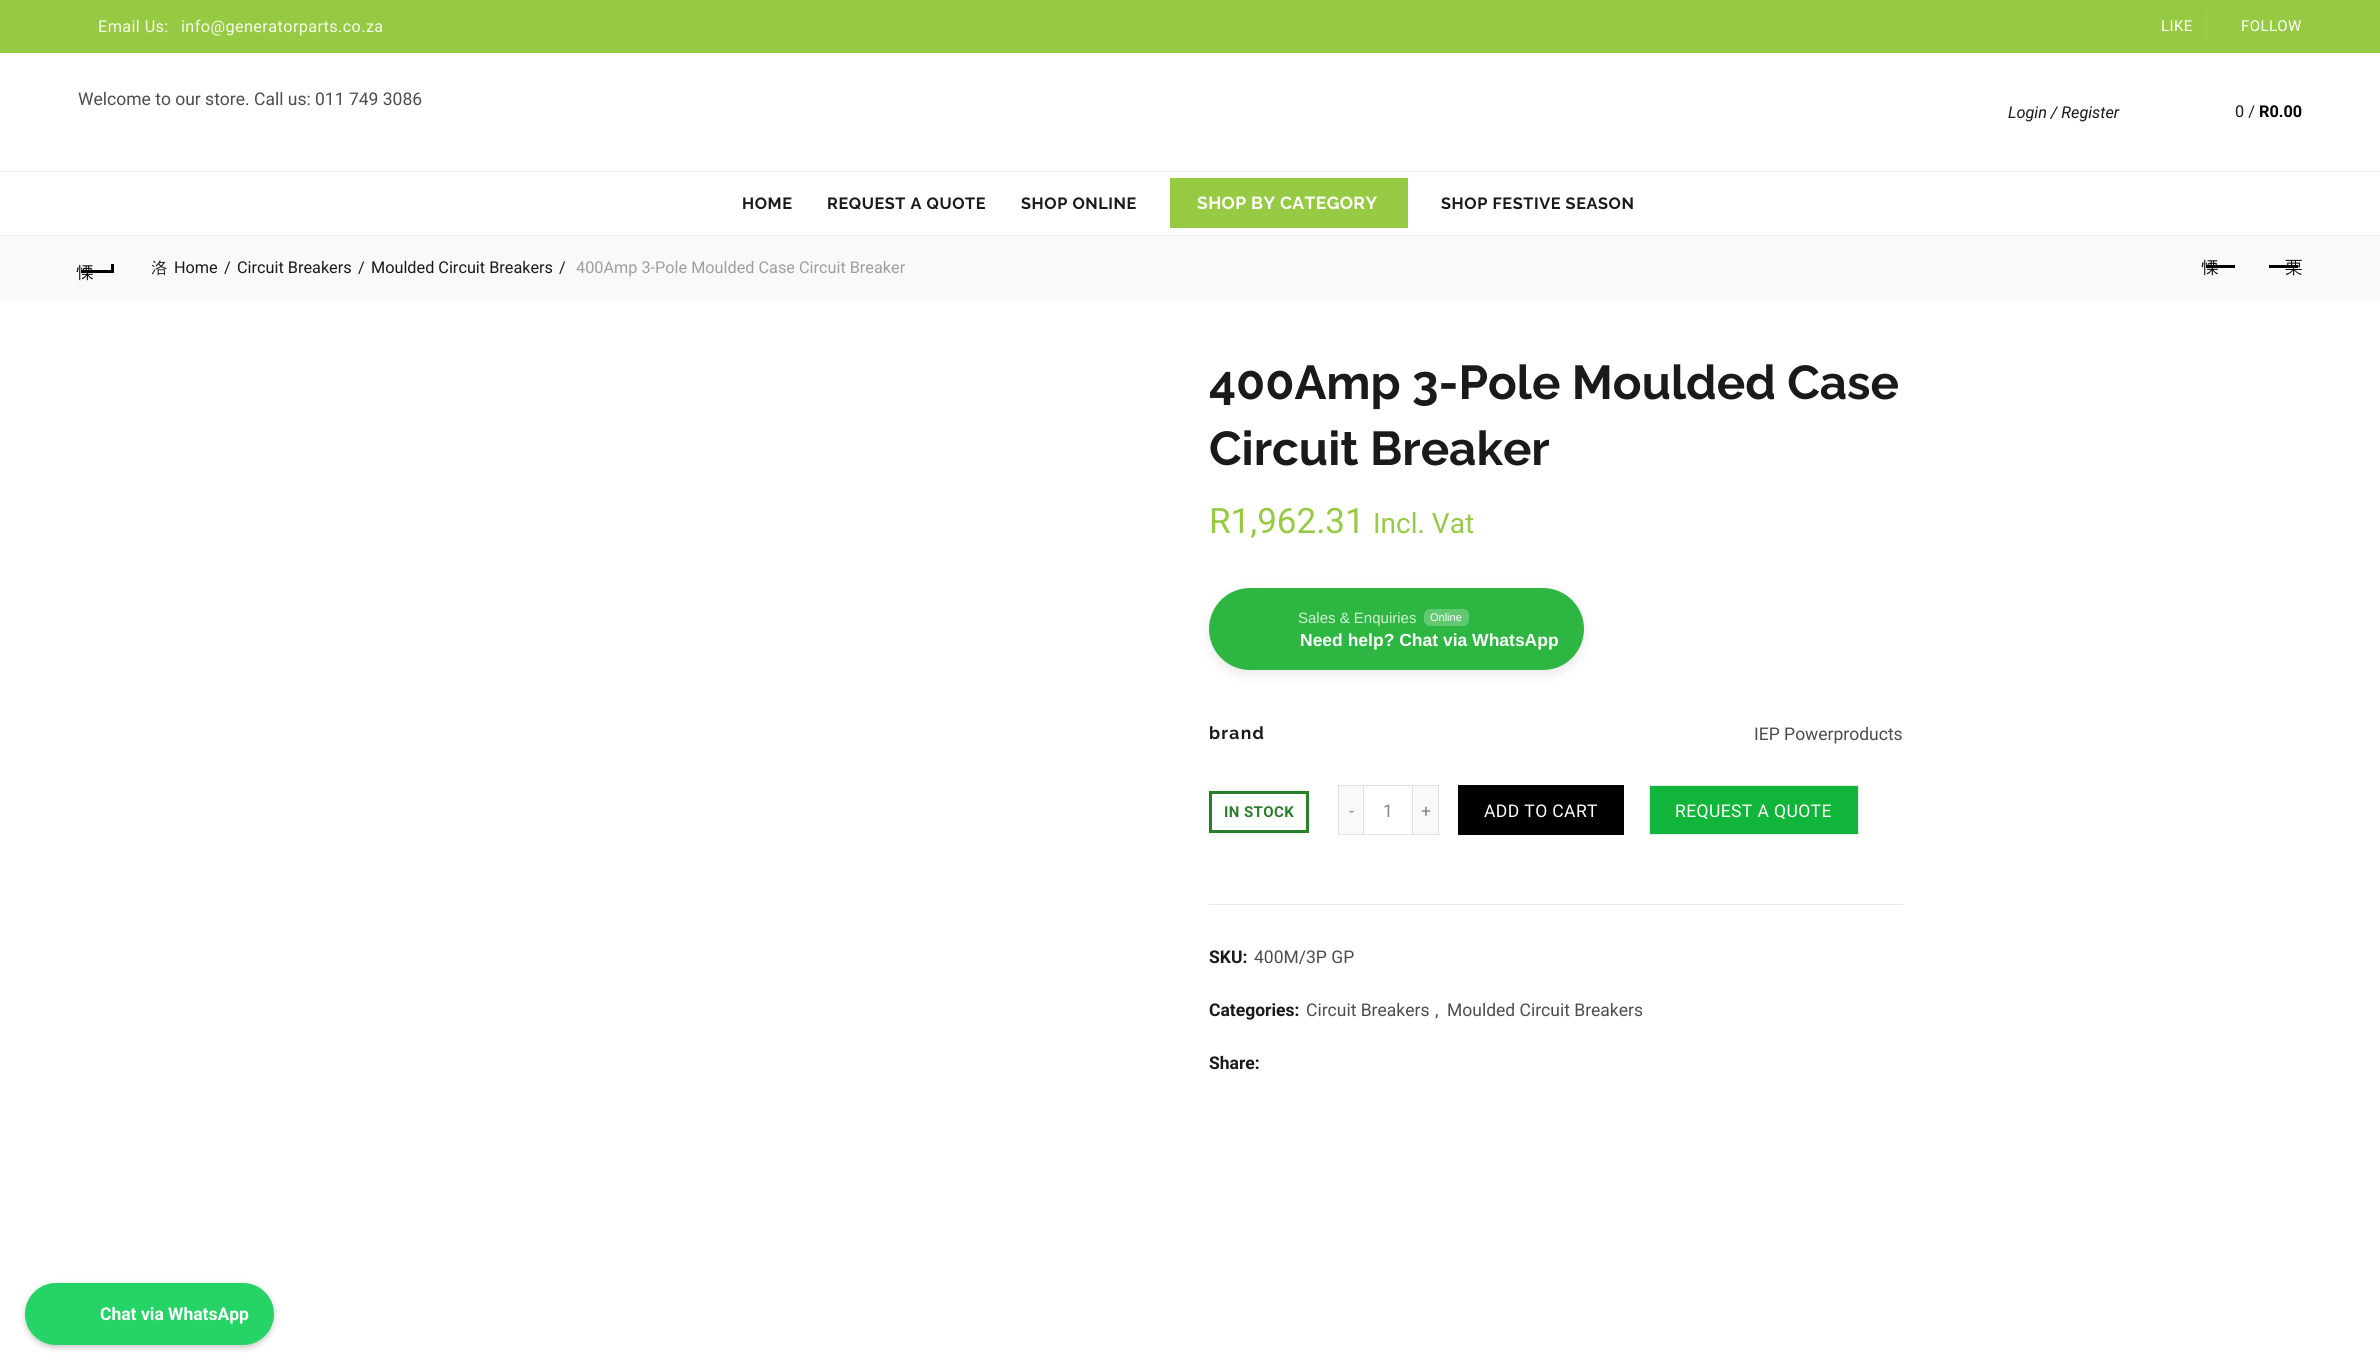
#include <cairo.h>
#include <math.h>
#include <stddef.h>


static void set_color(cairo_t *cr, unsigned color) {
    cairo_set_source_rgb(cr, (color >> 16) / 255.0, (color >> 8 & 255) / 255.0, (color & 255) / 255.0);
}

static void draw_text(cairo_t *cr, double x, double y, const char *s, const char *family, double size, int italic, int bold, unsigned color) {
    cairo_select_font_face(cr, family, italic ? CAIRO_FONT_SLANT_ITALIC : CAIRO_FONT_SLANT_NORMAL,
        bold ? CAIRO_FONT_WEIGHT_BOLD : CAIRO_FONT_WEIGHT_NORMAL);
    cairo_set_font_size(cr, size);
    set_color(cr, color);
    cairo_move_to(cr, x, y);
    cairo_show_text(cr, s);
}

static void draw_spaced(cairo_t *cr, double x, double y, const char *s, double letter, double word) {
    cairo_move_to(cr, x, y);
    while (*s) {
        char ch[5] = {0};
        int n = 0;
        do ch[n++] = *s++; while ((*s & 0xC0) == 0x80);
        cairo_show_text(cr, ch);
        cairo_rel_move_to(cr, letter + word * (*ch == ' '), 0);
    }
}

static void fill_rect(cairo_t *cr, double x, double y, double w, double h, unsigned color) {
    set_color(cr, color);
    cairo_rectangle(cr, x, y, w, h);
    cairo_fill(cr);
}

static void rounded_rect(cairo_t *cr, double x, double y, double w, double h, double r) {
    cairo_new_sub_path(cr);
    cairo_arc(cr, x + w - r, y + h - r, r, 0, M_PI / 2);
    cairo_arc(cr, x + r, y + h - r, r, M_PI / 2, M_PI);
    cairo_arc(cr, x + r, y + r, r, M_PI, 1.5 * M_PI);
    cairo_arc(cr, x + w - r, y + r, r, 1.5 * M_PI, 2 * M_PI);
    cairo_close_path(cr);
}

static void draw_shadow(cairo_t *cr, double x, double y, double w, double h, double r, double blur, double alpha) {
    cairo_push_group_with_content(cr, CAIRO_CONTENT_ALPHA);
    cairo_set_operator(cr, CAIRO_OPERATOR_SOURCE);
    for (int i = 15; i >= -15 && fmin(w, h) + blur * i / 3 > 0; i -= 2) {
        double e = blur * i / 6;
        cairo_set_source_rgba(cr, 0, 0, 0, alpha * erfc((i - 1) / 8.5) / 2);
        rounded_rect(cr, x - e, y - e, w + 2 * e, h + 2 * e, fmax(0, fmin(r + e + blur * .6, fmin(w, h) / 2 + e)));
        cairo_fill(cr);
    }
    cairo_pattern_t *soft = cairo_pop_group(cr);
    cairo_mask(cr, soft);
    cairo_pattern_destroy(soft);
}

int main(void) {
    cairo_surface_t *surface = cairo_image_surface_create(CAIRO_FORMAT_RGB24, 2380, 1370);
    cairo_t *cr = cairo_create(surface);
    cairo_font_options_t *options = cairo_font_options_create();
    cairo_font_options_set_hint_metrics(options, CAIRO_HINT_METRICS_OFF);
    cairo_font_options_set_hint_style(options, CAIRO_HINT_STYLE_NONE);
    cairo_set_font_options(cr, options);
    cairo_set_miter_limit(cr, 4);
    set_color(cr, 0xFFFFFF);
    cairo_paint(cr);
    fill_rect(cr, 0, 0, 2380, 53, 0x97CA43);
    cairo_select_font_face(cr, "Roboto", CAIRO_FONT_SLANT_NORMAL, CAIRO_FONT_WEIGHT_NORMAL);
    cairo_set_font_size(cr, 16.25);
    set_color(cr, 0xF5FAEC);
    draw_spaced(cr, 98, 32, "Email Us:", 0.4, 0);
    draw_spaced(cr, 181, 32, "info@generatorparts.co.za", 0.4, 0);
    cairo_set_font_size(cr, 15);
    set_color(cr, 0xFFFFFF);
    draw_spaced(cr, 2161, 31, "LIKE", 0.4, 0);
    fill_rect(cr, 2206, 11, 1, 32, 0xA1CF56);
    set_color(cr, 0xFFFFFF);
    draw_spaced(cr, 2241, 31, "FOLLOW", 0.4, 0);
    draw_text(cr, 78, 105, "Welcome to our store. Call us: 011 749 3086", "Roboto", 17.5, 0, 0, 0x4D4D4D);
    draw_text(cr, 2008, 118, "Login / Register", "Roboto", 16.25, 1, 0, 0x1A1A1A);
    draw_text(cr, 2235, 117, "0 /", "Roboto", 16.25, 0, 0, 0x1A1A1A);
    draw_text(cr, 2259, 117, "R0.00", "Roboto", 16.25, 0, 1, 0x000000);
    fill_rect(cr, 0, 171, 2380, 1, 0xEEEEEE);
    fill_rect(cr, 0, 235, 2380, 1, 0xEEEEEE);
    cairo_select_font_face(cr, "Raleway", CAIRO_FONT_SLANT_NORMAL, CAIRO_FONT_WEIGHT_BOLD);
    set_color(cr, 0x1A1A1A);
    draw_spaced(cr, 742, 209, "HOME", 0.6, 0);
    draw_spaced(cr, 827, 209, "REQUEST A QUOTE", 0.6, 0);
    draw_spaced(cr, 1021, 209, "SHOP ONLINE", 0.6, 0);
    fill_rect(cr, 1170, 178, 238, 50, 0x97CA43);
    cairo_set_font_size(cr, 17.5);
    set_color(cr, 0xFFFFFF);
    draw_spaced(cr, 1197, 209, "SHOP BY CATEGORY", 0.4, 0);
    cairo_set_font_size(cr, 16.25);
    set_color(cr, 0x1A1A1A);
    draw_spaced(cr, 1441, 209, "SHOP FESTIVE SEASON", 0.6, 0);
    fill_rect(cr, 0, 236, 2380, 63, 0xF9F9F9);
    fill_rect(cr, 81, 270, 32, 3, 0x000000);
    draw_text(cr, 76, 278, "慄", "WenQuanYi Zen Hei Medium", 17.5, 0, 0, 0x000000);
    fill_rect(cr, 111, 264, 3, 9, 0x000000);
    draw_text(cr, 151, 273, "洛", "WenQuanYi Zen Hei Medium", 16.25, 0, 0, 0x1A1A1A);
    draw_text(cr, 174, 273, "Home", "Roboto", 16.25, 0, 0, 0x1A1A1A);
    draw_text(cr, 224, 273, "/", "Roboto", 16.25, 0, 0, 0x1A1A1A);
    draw_text(cr, 237, 273, "Circuit Breakers", "Roboto", 16.25, 0, 0, 0x1A1A1A);
    draw_text(cr, 358, 273, "/", "Roboto", 16.25, 0, 0, 0x1A1A1A);
    draw_text(cr, 371, 273, "Moulded Circuit Breakers", "Roboto", 16.25, 0, 0, 0x1A1A1A);
    draw_text(cr, 559, 273, "/", "Roboto", 16.25, 0, 0, 0x1A1A1A);
    draw_text(cr, 576, 273, "400Amp 3-Pole Moulded Case Circuit Breaker", "Roboto", 16.25, 0, 0, 0x9E9E9E);
    fill_rect(cr, 2206, 265, 29, 3, 0x000000);
    draw_text(cr, 2201, 273, "慄", "WenQuanYi Zen Hei Medium", 17.5, 0, 0, 0x000000);
    fill_rect(cr, 2269, 265, 29, 3, 0x000000);
    draw_text(cr, 2285, 273, "栗", "WenQuanYi Zen Hei Medium", 17.5, 0, 0, 0x000000);
    draw_text(cr, 1209, 399, "400Amp 3-Pole Moulded Case", "Raleway", 47.5, 0, 1, 0x1A1A1A);
    draw_text(cr, 1209, 465, "Circuit Breaker", "Raleway", 47.5, 0, 1, 0x1A1A1A);
    draw_text(cr, 1209, 533, "R1,962.31", "Roboto", 35, 0, 0, 0x97CA43);
    draw_text(cr, 1373, 533, "Incl. Vat", "Roboto", 28, 0, 0, 0x97CA43);
    set_color(cr, 0x202025);
    draw_shadow(cr, 1208, 591, 377, 85, 42.5, 5, 0.09);
    set_color(cr, 0x2DB742);
    rounded_rect(cr, 1209, 588, 375, 82, 41);
    cairo_fill(cr);
    draw_text(cr, 1298, 623, "Sales & Enquiries", "Liberation Sans", 15, 0, 0, 0xD5F1D9);
    set_color(cr, 0x62C971);
    rounded_rect(cr, 1424, 609, 45, 17, 6);
    cairo_fill(cr);
    draw_text(cr, 1430, 621, "Online", "Liberation Sans", 11, 0, 0, 0xFFFFFF);
    draw_text(cr, 1300, 646, "Need help? Chat via WhatsApp", "Liberation Sans", 17.5, 0, 1, 0xFFFFFF);
    cairo_select_font_face(cr, "Raleway", CAIRO_FONT_SLANT_NORMAL, CAIRO_FONT_WEIGHT_BOLD);
    set_color(cr, 0x1A1A1A);
    draw_spaced(cr, 1209, 739, "brand", 1.25, 0);
    draw_text(cr, 1754, 740, "IEP Powerproducts", "Roboto", 17.5, 0, 0, 0x4D4D4D);
    cairo_rectangle(cr, 1210.5, 792.5, 97, 39);
    set_color(cr, 0x297E29);
    cairo_set_line_width(cr, 3);
    cairo_stroke(cr);
    cairo_select_font_face(cr, "Roboto", CAIRO_FONT_SLANT_NORMAL, CAIRO_FONT_WEIGHT_BOLD);
    cairo_set_font_size(cr, 15);
    draw_spaced(cr, 1224, 817, "IN STOCK", 0.4, 0);
    fill_rect(cr, 1339, 786, 24, 48, 0xF9F9F9);
    fill_rect(cr, 1338, 785, 25, 1, 0xE0E0E0);
    fill_rect(cr, 1338, 834, 25, 1, 0xE0E0E0);
    fill_rect(cr, 1338, 785, 1, 50, 0xE0E0E0);
    draw_text(cr, 1349, 817, "-", "Roboto", 17.5, 0, 0, 0x848484);
    cairo_rectangle(cr, 1363.5, 785.5, 49, 49);
    set_color(cr, 0xE0E0E0);
    cairo_set_line_width(cr, 1);
    cairo_stroke(cr);
    draw_text(cr, 1383, 817, "1", "Roboto", 17.5, 0, 0, 0x848484);
    fill_rect(cr, 1413, 786, 25, 48, 0xF9F9F9);
    fill_rect(cr, 1413, 785, 26, 1, 0xE0E0E0);
    fill_rect(cr, 1438, 785, 1, 50, 0xE0E0E0);
    fill_rect(cr, 1413, 834, 26, 1, 0xE0E0E0);
    draw_text(cr, 1421, 817, "+", "Roboto", 17.5, 0, 0, 0x848484);
    fill_rect(cr, 1458, 785, 166, 50, 0x000000);
    set_color(cr, 0xFFFFFF);
    draw_spaced(cr, 1484, 817, "ADD TO CART", 0.4, 0);
    set_color(cr, 0x10B53A);
    cairo_rectangle(cr, 1649.5, 785.5, 209, 49);
    cairo_fill_preserve(cr);
    set_color(cr, 0xECECEC);
    cairo_stroke(cr);
    set_color(cr, 0xFFFFFF);
    draw_spaced(cr, 1675, 817, "REQUEST A QUOTE", 0.4, 0);
    fill_rect(cr, 1209, 904, 694, 1, 0xE8E8E8);
    draw_text(cr, 1209, 963, "SKU:", "Roboto", 17.5, 0, 1, 0x1A1A1A);
    draw_text(cr, 1254, 963, "400M/3P GP", "Roboto", 17.5, 0, 0, 0x4D4D4D);
    draw_text(cr, 1209, 1016, "Categories:", "Roboto", 17.5, 0, 1, 0x1A1A1A);
    draw_text(cr, 1306, 1016, "Circuit Breakers", "Roboto", 17.5, 0, 0, 0x4D4D4D);
    draw_text(cr, 1435, 1016, ",", "Roboto", 17.5, 0, 0, 0x4D4D4D);
    draw_text(cr, 1447, 1016, "Moulded Circuit Breakers", "Roboto", 17.5, 0, 0, 0x4D4D4D);
    draw_text(cr, 1209, 1069, "Share:", "Roboto", 17.5, 0, 1, 0x1A1A1A);
    set_color(cr, 0x000000);
    draw_shadow(cr, 25, 1285, 249, 63, 31.5, 3, 0.2);
    set_color(cr, 0x25D366);
    rounded_rect(cr, 25, 1283, 249, 62, 31);
    cairo_fill(cr);
    draw_text(cr, 100, 1320, "Chat via WhatsApp", "Roboto", 17.5, 0, 1, 0xFFFFFF);
    cairo_surface_write_to_png(surface, "output.png");
    cairo_font_options_destroy(options);
    cairo_destroy(cr);
    cairo_surface_destroy(surface);
    return 0;
}
